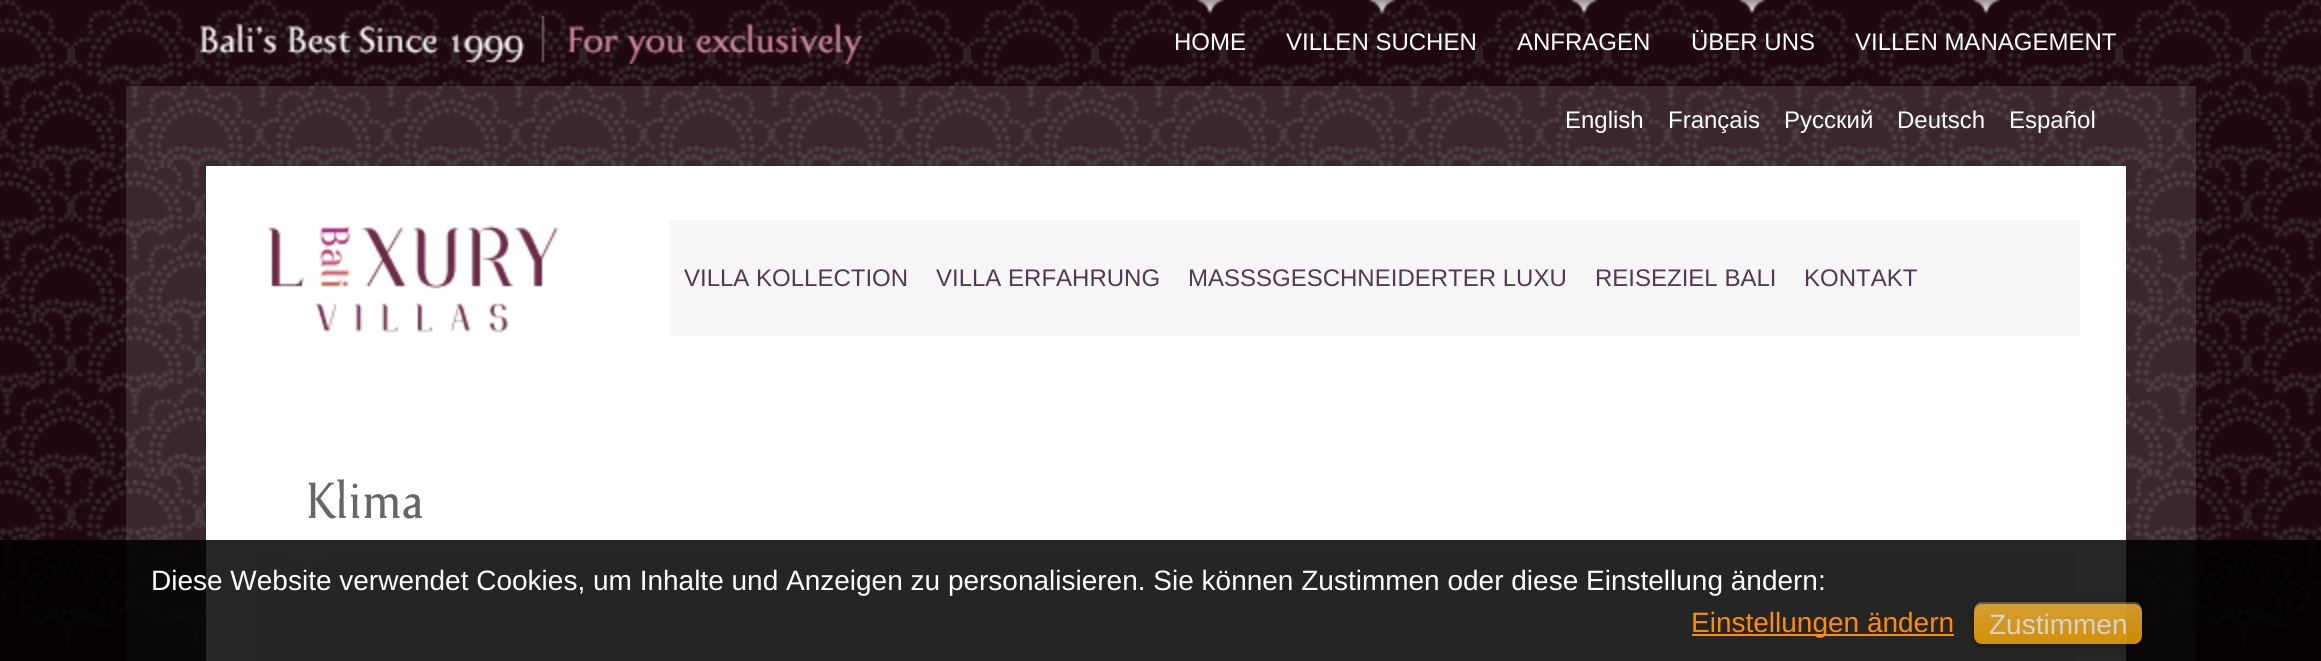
#include <cairo.h>
#include <math.h>
#include <stddef.h>


static void set_color(cairo_t *cr, unsigned color) {
    cairo_set_source_rgb(cr, (color >> 16) / 255.0, (color >> 8 & 255) / 255.0, (color & 255) / 255.0);
}

static void draw_text(cairo_t *cr, double x, double y, const char *s, const char *family, double size, int italic, int bold, unsigned color) {
    cairo_select_font_face(cr, family, italic ? CAIRO_FONT_SLANT_ITALIC : CAIRO_FONT_SLANT_NORMAL,
        bold ? CAIRO_FONT_WEIGHT_BOLD : CAIRO_FONT_WEIGHT_NORMAL);
    cairo_set_font_size(cr, size);
    set_color(cr, color);
    cairo_move_to(cr, x, y);
    cairo_show_text(cr, s);
}

static void draw_spaced(cairo_t *cr, double x, double y, const char *s, double letter, double word) {
    cairo_move_to(cr, x, y);
    while (*s) {
        char ch[5] = {0};
        int n = 0;
        do ch[n++] = *s++; while ((*s & 0xC0) == 0x80);
        cairo_show_text(cr, ch);
        cairo_rel_move_to(cr, letter + word * (*ch == ' '), 0);
    }
}

static void fill_rect(cairo_t *cr, double x, double y, double w, double h, unsigned color) {
    set_color(cr, color);
    cairo_rectangle(cr, x, y, w, h);
    cairo_fill(cr);
}

static void rounded_rect(cairo_t *cr, double x, double y, double w, double h, double r) {
    cairo_new_sub_path(cr);
    cairo_arc(cr, x + w - r, y + h - r, r, 0, M_PI / 2);
    cairo_arc(cr, x + r, y + h - r, r, M_PI / 2, M_PI);
    cairo_arc(cr, x + r, y + r, r, M_PI, 1.5 * M_PI);
    cairo_arc(cr, x + w - r, y + r, r, 1.5 * M_PI, 2 * M_PI);
    cairo_close_path(cr);
}

static void draw_shadow(cairo_t *cr, double x, double y, double w, double h, double r, double blur, double alpha) {
    cairo_push_group_with_content(cr, CAIRO_CONTENT_ALPHA);
    cairo_set_operator(cr, CAIRO_OPERATOR_SOURCE);
    for (int i = 15; i >= -15 && fmin(w, h) + blur * i / 3 > 0; i -= 2) {
        double e = blur * i / 6;
        cairo_set_source_rgba(cr, 0, 0, 0, alpha * erfc((i - 1) / 8.5) / 2);
        rounded_rect(cr, x - e, y - e, w + 2 * e, h + 2 * e, fmax(0, fmin(r + e + blur * .6, fmin(w, h) / 2 + e)));
        cairo_fill(cr);
    }
    cairo_pattern_t *soft = cairo_pop_group(cr);
    cairo_mask(cr, soft);
    cairo_pattern_destroy(soft);
}

static void draw_image(cairo_t *cr, const char *path, double x, double y, double w, double h) {
    cairo_surface_t *image = cairo_image_surface_create_from_png(path);
    cairo_save(cr);
    cairo_set_source_surface(cr, image, x, y);
    cairo_rectangle(cr, x, y, w, h);
    cairo_fill(cr);
    cairo_restore(cr);
    cairo_surface_destroy(image);
}

int main(void) {
    cairo_surface_t *surface = cairo_image_surface_create(CAIRO_FORMAT_RGB24, 2321, 661);
    cairo_t *cr = cairo_create(surface);
    cairo_font_options_t *options = cairo_font_options_create();
    cairo_font_options_set_hint_metrics(options, CAIRO_HINT_METRICS_OFF);
    cairo_font_options_set_hint_style(options, CAIRO_HINT_STYLE_NONE);
    cairo_set_font_options(cr, options);
    cairo_set_miter_limit(cr, 4);
    cairo_pattern_t *gradient;
    set_color(cr, 0x200810);
    cairo_paint(cr);
    draw_image(cr, "assets/img1.png", 0, 0, 2321, 649);
    draw_image(cr, "assets/img2.png", 200, 16, 662, 48);
    draw_image(cr, "assets/img3.png", 1196, 0, 28, 14);
    draw_text(cr, 1174, 50, "HOME", "Liberation Sans", 24, 0, 0, 0xFFFFFF);
    draw_image(cr, "assets/img4.png", 1368, 0, 28, 14);
    draw_text(cr, 1286, 50, "VILLEN SUCHEN", "Liberation Sans", 24, 0, 0, 0xFFFFFF);
    draw_image(cr, "assets/img5.png", 1570, 0, 28, 14);
    draw_text(cr, 1517, 50, "ANFRAGEN", "Liberation Sans", 24, 0, 0, 0xFFFFFF);
    draw_image(cr, "assets/img6.png", 1738, 0, 28, 14);
    draw_text(cr, 1691, 50, "ÜBER UNS", "Liberation Sans", 24, 0, 0, 0xFFFFFF);
    draw_image(cr, "assets/img7.png", 1972, 0, 28, 14);
    draw_text(cr, 1855, 50, "VILLEN MANAGEMENT", "Liberation Sans", 24, 0, 0, 0xFFFFFF);
    cairo_set_source_rgba(cr, 0.824, 0.824, 0.824, 0.15);
    cairo_rectangle(cr, 126, 86, 2070, 575);
    cairo_fill(cr);
    fill_rect(cr, 206, 166, 1920, 495, 0xFFFFFF);
    draw_text(cr, 1565, 128, "English", "Liberation Sans", 24, 0, 0, 0xFFFFFF);
    draw_text(cr, 1668, 128, "Français", "Liberation Sans", 24, 0, 0, 0xFFFFFF);
    draw_text(cr, 1784, 128, "Русский", "Liberation Sans", 24, 0, 0, 0xFFFFFF);
    draw_text(cr, 1897, 128, "Deutsch", "Liberation Sans", 24, 0, 0, 0xFFFFFF);
    draw_text(cr, 2009, 128, "Español", "Liberation Sans", 24, 0, 0, 0xFFFFFF);
    draw_image(cr, "assets/img8.png", 267, 225, 292, 108);
    fill_rect(cr, 670, 220, 1410, 116, 0xF7F6F7);
    draw_text(cr, 684, 286, "VILLA KOLLECTION", "Liberation Sans", 24, 0, 0, 0x513950);
    draw_text(cr, 936, 286, "VILLA ERFAHRUNG", "Liberation Sans", 24, 0, 0, 0x513950);
    draw_text(cr, 1188, 286, "MASSSGESCHNEIDERTER LUXU", "Liberation Sans", 24, 0, 0, 0x513950);
    draw_text(cr, 1595, 286, "REISEZIEL BALI", "Liberation Sans", 24, 0, 0, 0x513950);
    draw_text(cr, 1804, 286, "KONTAKT", "Liberation Sans", 24, 0, 0, 0x513950);
    fill_rect(cr, 256, 570, 1820, 91, 0xF7F6F7);
    draw_image(cr, "assets/img9.png", 256, 396, 1820, 174);
    cairo_select_font_face(cr, "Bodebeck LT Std", CAIRO_FONT_SLANT_NORMAL, CAIRO_FONT_WEIGHT_BOLD);
    cairo_set_font_size(cr, 50);
    set_color(cr, 0x666666);
    draw_spaced(cr, 306, 518, "Klima", 2, 0);
    cairo_set_source_rgba(cr, 0, 0, 0, 0.85);
    cairo_rectangle(cr, 0, 540, 2321, 121);
    cairo_fill(cr);
    draw_text(cr, 151, 590, "Diese Website verwendet Cookies, um Inhalte und Anzeigen zu personalisieren. Sie können Zustimmen oder diese Einstellung ändern:", "Liberation Sans", 28, 0, 0, 0xFFFFFF);
    fill_rect(cr, 1692, 634, 262, 2, 0xFF8C00);
    draw_text(cr, 1691, 632, "Einstellungen ändern", "Liberation Sans", 28, 0, 0, 0xFF8C00);
    cairo_set_source_rgba(cr, 1, 1, 1, 0.32);
    cairo_new_path(cr);
    cairo_move_to(cr, 1982, 602);
    cairo_curve_to(cr, 1976, 602, 1974, 607, 1974, 612);
    cairo_curve_to(cr, 1974, 608, 1978, 604, 1982, 604);
    cairo_line_to(cr, 2134, 604);
    cairo_curve_to(cr, 2138, 604, 2142, 608, 2142, 612);
    cairo_curve_to(cr, 2142, 607, 2140, 602, 2134, 602);
    cairo_close_path(cr);
    cairo_fill(cr);
    cairo_save(cr);
    cairo_set_fill_rule(cr, CAIRO_FILL_RULE_EVEN_ODD);
    cairo_new_path(cr);
    cairo_move_to(cr, 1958, 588);
    cairo_line_to(cr, 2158, 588);
    cairo_line_to(cr, 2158, 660);
    cairo_line_to(cr, 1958, 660);
    cairo_close_path(cr);
    cairo_move_to(cr, 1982, 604);
    cairo_line_to(cr, 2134, 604);
    cairo_curve_to(cr, 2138.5, 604, 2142, 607.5, 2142, 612);
    cairo_line_to(cr, 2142, 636);
    cairo_curve_to(cr, 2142, 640.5, 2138.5, 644, 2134, 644);
    cairo_line_to(cr, 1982, 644);
    cairo_curve_to(cr, 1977.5, 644, 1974, 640.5, 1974, 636);
    cairo_line_to(cr, 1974, 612);
    cairo_curve_to(cr, 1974, 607.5, 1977.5, 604, 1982, 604);
    cairo_close_path(cr);
    cairo_clip(cr);
    set_color(cr, 0x000000);
    draw_shadow(cr, 1974, 604, 168, 40, 8, 5, 0.4);
    cairo_restore(cr);
    gradient = cairo_pattern_create_linear(2058, 604, 2058, 644);
    cairo_pattern_add_color_stop_rgba(gradient, 0, 1, 0.741, 0.212, 0.8);
    cairo_pattern_add_color_stop_rgba(gradient, 1, 1, 0.671, 0, 0.8);
    cairo_set_source(cr, gradient);
    cairo_pattern_destroy(gradient);
    rounded_rect(cr, 1974, 604, 168, 40, 8);
    cairo_fill(cr);
    draw_text(cr, 1989, 634, "Zustimmen", "Liberation Sans", 28, 0, 0, 0xD3D3D3);
    cairo_surface_write_to_png(surface, "output.png");
    cairo_font_options_destroy(options);
    cairo_destroy(cr);
    cairo_surface_destroy(surface);
    return 0;
}
